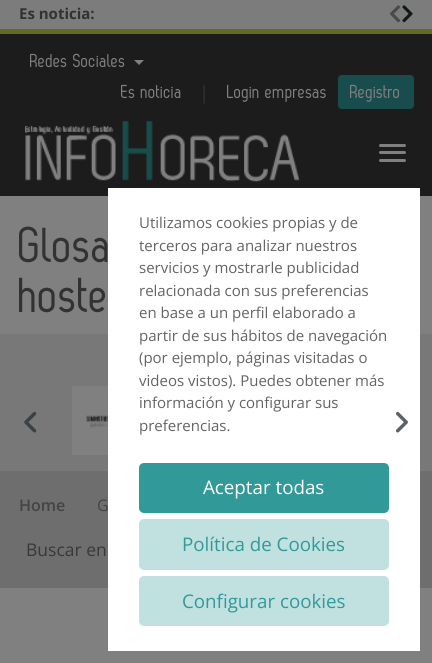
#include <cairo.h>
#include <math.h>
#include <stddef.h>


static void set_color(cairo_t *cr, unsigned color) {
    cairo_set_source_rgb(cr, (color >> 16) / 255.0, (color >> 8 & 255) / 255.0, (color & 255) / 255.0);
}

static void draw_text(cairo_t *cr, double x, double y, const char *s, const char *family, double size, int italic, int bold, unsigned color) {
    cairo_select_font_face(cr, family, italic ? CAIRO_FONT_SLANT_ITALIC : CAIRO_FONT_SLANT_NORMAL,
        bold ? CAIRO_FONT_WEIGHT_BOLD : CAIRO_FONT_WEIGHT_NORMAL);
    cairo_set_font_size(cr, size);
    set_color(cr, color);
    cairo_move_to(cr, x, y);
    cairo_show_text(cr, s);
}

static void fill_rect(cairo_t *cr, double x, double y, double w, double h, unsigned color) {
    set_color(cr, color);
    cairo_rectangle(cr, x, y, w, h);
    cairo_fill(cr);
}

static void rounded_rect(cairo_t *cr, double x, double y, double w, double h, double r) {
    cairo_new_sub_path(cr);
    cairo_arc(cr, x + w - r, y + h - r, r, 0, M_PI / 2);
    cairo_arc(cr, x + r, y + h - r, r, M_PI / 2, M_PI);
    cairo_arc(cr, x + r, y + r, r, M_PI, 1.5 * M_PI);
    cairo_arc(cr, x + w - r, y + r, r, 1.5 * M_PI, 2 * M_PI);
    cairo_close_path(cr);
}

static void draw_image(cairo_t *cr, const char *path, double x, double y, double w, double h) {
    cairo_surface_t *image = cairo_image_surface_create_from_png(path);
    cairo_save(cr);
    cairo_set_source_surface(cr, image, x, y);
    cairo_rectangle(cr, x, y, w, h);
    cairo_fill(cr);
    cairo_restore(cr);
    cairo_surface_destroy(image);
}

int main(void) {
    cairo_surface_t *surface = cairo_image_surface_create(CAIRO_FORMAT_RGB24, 432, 663);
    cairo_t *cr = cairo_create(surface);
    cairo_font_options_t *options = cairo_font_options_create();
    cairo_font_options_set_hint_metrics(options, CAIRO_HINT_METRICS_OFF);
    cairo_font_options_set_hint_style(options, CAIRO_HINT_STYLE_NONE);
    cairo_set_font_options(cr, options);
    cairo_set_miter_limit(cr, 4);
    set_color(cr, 0x808080);
    cairo_paint(cr);
    fill_rect(cr, 0, 0, 432, 29, 0x7C7C7C);
    draw_text(cr, 19, 19, "Es noticia:", "Open Sans", 15, 0, 1, 0x323232);
    draw_image(cr, "assets/img1.png", 389, 5, 12, 18);
    draw_image(cr, "assets/img2.png", 402, 5, 11, 18);
    fill_rect(cr, 0, 34, 432, 162, 0x1D1C1C);
    fill_rect(cr, 0, 29, 432, 5, 0x646A24);
    draw_text(cr, 30, 67, "Redes Sociales", "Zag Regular", 18.75, 0, 0, 0x808080);
    cairo_new_path(cr);
    cairo_move_to(cr, 134, 60);
    cairo_line_to(cr, 144, 60);
    cairo_line_to(cr, 139, 65);
    cairo_close_path(cr);
    cairo_fill(cr);
    draw_text(cr, 121, 98, "Es noticia", "Zag Regular", 18.75, 0, 0, 0x808080);
    draw_text(cr, 199, 99, "|", "Open Sans", 18.75, 0, 0, 0x323232);
    draw_text(cr, 227, 98, "Login empresas", "Zag Regular", 18.75, 0, 0, 0x808080);
    set_color(cr, 0x194D4D);
    rounded_rect(cr, 338, 75, 76, 34, 4);
    cairo_fill(cr);
    draw_text(cr, 350, 98, "Registro", "Zag Regular", 18.75, 0, 0, 0x808080);
    draw_image(cr, "assets/img3.png", 25, 121, 275, 61);
    rounded_rect(cr, 379, 144, 27, 3, 1.5);
    cairo_fill(cr);
    rounded_rect(cr, 379, 151, 27, 3, 1.5);
    cairo_fill(cr);
    rounded_rect(cr, 379, 159, 27, 3, 1.5);
    cairo_fill(cr);
    draw_text(cr, 19, 262, "Glosa", "Zag Regular", 50, 0, 0, 0x323232);
    draw_text(cr, 19, 312, "hoste", "Zag Regular", 50, 0, 0, 0x323232);
    fill_rect(cr, 0, 334, 432, 137, 0x787878);
    fill_rect(cr, 0, 471, 432, 117, 0x6E6E6E);
    fill_rect(cr, 108, 188, 312, 463, 0xFFFFFF);
    draw_text(cr, 139, 228, "Utilizamos cookies propias y de", "Open Sans", 15, 0, 0, 0x646464);
    draw_text(cr, 139, 251, "terceros para analizar nuestros", "Open Sans", 15, 0, 0, 0x646464);
    draw_text(cr, 139, 273, "servicios y mostrarle publicidad", "Open Sans", 15, 0, 0, 0x646464);
    draw_text(cr, 139, 296, "relacionada con sus preferencias", "Open Sans", 15, 0, 0, 0x646464);
    draw_text(cr, 139, 318, "en base a un perfil elaborado a", "Open Sans", 15, 0, 0, 0x646464);
    draw_text(cr, 139, 341, "partir de sus hábitos de navegación", "Open Sans", 15, 0, 0, 0x646464);
    draw_text(cr, 139, 363, "(por ejemplo, páginas visitadas o", "Open Sans", 15, 0, 0, 0x646464);
    draw_text(cr, 139, 386, "videos vistos). Puedes obtener más", "Open Sans", 15, 0, 0, 0x646464);
    draw_text(cr, 139, 408, "información y configurar sus", "Open Sans", 15, 0, 0, 0x646464);
    draw_text(cr, 139, 431, "preferencias.", "Open Sans", 15, 0, 0, 0x646464);
    set_color(cr, 0x319A99);
    rounded_rect(cr, 139, 463, 250, 50, 5);
    cairo_fill(cr);
    draw_text(cr, 203, 494, "Aceptar todas", "Open Sans", 18.75, 0, 0, 0xFFFFFF);
    set_color(cr, 0xC1E1E0);
    rounded_rect(cr, 139, 519, 250, 51, 5);
    cairo_fill(cr);
    draw_text(cr, 182, 551, "Política de Cookies", "Open Sans", 18.75, 0, 0, 0x319A99);
    set_color(cr, 0xC1E1E0);
    rounded_rect(cr, 139, 576, 250, 50, 5);
    cairo_fill(cr);
    draw_text(cr, 182, 608, "Configurar cookies", "Open Sans", 18.75, 0, 0, 0x319A99);
    draw_image(cr, "assets/img4.png", 24, 411, 13, 22);
    fill_rect(cr, 72, 386, 36, 69, 0x808080);
    draw_image(cr, "assets/img5.png", 86, 415, 22, 13);
    draw_image(cr, "assets/img6.png", 396, 411, 12, 22);
    draw_text(cr, 19, 511, "Home", "Open Sans SemiBold", 16, 0, 0, 0x444444);
    draw_text(cr, 97, 511, "G", "Open Sans", 16, 0, 0, 0x444444);
    draw_text(cr, 26, 556, "Buscar en", "Open Sans", 17.5, 0, 0, 0x383838);
    cairo_surface_write_to_png(surface, "output.png");
    cairo_font_options_destroy(options);
    cairo_destroy(cr);
    cairo_surface_destroy(surface);
    return 0;
}
